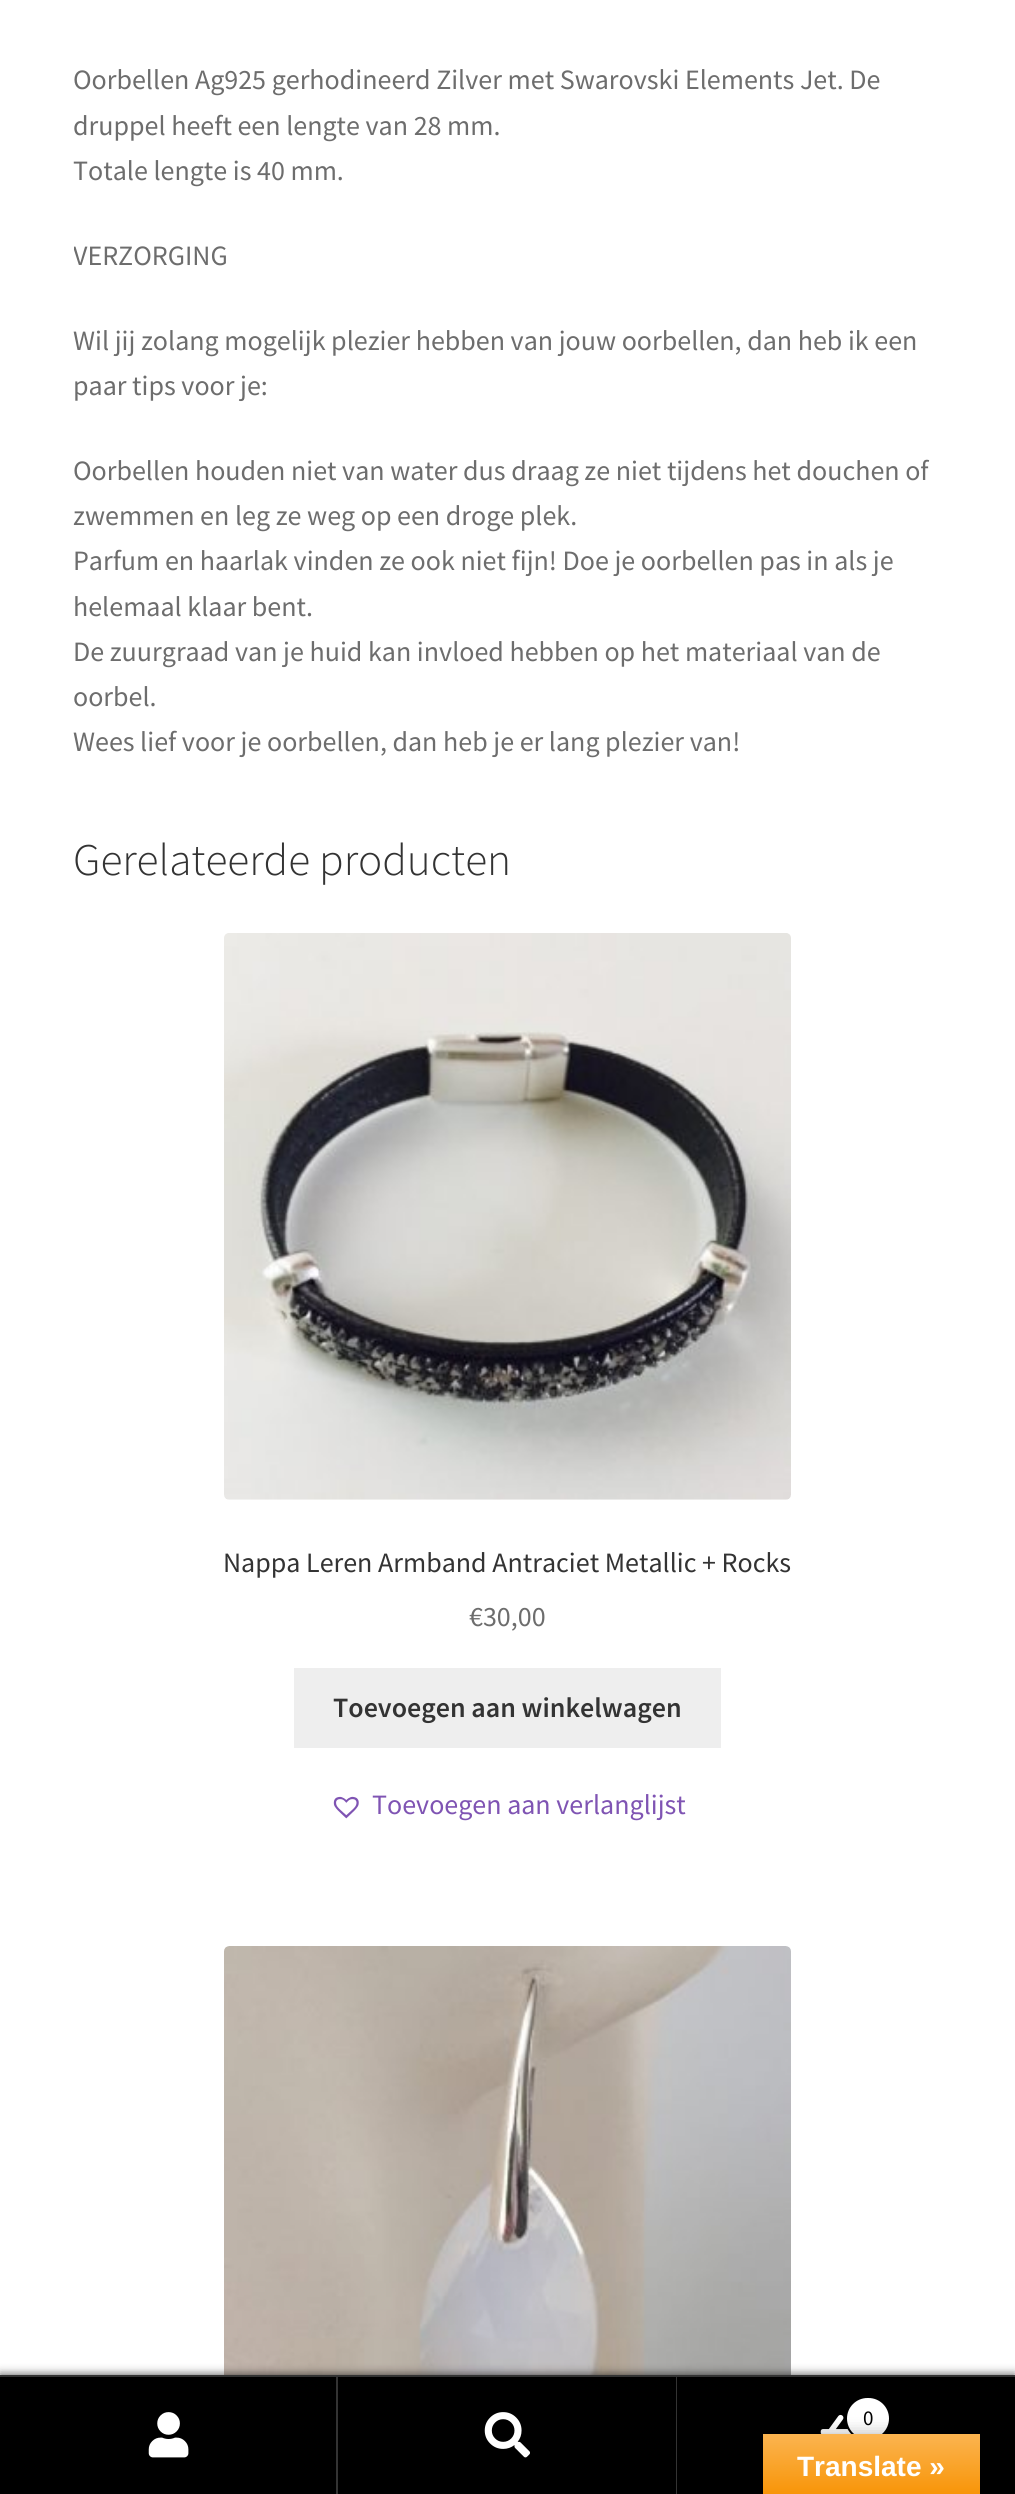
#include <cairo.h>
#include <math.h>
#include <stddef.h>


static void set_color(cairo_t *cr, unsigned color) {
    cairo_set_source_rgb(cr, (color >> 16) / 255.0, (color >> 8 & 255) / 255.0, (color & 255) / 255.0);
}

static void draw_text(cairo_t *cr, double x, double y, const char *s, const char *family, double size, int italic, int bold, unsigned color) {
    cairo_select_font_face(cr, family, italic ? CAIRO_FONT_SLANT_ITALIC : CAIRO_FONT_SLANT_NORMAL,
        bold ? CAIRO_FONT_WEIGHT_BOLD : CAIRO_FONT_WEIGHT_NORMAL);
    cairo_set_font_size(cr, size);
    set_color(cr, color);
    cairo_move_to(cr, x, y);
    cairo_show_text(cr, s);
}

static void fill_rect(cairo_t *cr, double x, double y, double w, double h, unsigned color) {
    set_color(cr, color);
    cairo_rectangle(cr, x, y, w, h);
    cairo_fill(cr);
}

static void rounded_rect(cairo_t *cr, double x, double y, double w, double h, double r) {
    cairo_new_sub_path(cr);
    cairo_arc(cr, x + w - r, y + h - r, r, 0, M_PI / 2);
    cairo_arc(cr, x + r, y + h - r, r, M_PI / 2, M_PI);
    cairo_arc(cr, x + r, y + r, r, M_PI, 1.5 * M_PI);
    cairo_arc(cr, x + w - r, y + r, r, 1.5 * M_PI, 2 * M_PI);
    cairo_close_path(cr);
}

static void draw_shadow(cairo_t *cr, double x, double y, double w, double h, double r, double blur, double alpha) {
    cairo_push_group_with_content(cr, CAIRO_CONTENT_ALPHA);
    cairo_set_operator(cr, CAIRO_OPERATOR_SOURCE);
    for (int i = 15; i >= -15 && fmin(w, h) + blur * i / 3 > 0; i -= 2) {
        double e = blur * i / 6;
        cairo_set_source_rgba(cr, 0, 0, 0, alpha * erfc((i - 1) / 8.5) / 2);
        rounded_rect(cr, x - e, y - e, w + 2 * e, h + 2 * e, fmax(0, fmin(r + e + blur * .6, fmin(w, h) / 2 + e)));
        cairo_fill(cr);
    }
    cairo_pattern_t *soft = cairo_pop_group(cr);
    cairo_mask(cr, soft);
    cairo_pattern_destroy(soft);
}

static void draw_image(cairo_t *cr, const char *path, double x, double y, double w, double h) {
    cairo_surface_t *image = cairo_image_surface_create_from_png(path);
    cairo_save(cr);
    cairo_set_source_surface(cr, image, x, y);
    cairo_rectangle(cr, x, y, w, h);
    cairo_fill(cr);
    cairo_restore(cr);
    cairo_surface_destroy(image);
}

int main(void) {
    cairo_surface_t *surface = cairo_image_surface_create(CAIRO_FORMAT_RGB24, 1015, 2494);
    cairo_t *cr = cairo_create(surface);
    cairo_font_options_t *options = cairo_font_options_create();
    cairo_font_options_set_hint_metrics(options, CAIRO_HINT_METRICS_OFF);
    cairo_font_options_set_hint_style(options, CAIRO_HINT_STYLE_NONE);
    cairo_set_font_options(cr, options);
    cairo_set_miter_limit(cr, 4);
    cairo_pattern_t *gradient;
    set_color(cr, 0xFFFFFF);
    cairo_paint(cr);
    draw_text(cr, 73, 89, "Oorbellen Ag925 gerhodineerd Zilver met Swarovski Elements Jet. De", "Source Sans Pro", 28, 0, 0, 0x6D6D6D);
    draw_text(cr, 73, 135, "druppel heeft een lengte van 28 mm.", "Source Sans Pro", 28, 0, 0, 0x6D6D6D);
    draw_text(cr, 73, 180, "Totale lengte is 40 mm.", "Source Sans Pro", 28, 0, 0, 0x6D6D6D);
    cairo_save(cr);
    cairo_rectangle(cr, 74, 0, 868, 833);
    cairo_clip(cr);
    draw_text(cr, 73, 265, "VERZORGING", "Source Sans Pro", 28, 0, 0, 0x6D6D6D);
    cairo_restore(cr);
    draw_text(cr, 73, 350, "Wil jij zolang mogelijk plezier hebben van jouw oorbellen, dan heb ik een", "Source Sans Pro", 28, 0, 0, 0x6D6D6D);
    draw_text(cr, 73, 395, "paar tips voor je:", "Source Sans Pro", 28, 0, 0, 0x6D6D6D);
    draw_text(cr, 73, 480, "Oorbellen houden niet van water dus draag ze niet tijdens het douchen of", "Source Sans Pro", 28, 0, 0, 0x6D6D6D);
    draw_text(cr, 73, 525, "zwemmen en leg ze weg op een droge plek.", "Source Sans Pro", 28, 0, 0, 0x6D6D6D);
    draw_text(cr, 73, 570, "Parfum en haarlak vinden ze ook niet fijn! Doe je oorbellen pas in als je", "Source Sans Pro", 28, 0, 0, 0x6D6D6D);
    draw_text(cr, 73, 616, "helemaal klaar bent.", "Source Sans Pro", 28, 0, 0, 0x6D6D6D);
    draw_text(cr, 73, 661, "De zuurgraad van je huid kan invloed hebben op het materiaal van de", "Source Sans Pro", 28, 0, 0, 0x6D6D6D);
    draw_text(cr, 73, 706, "oorbel.", "Source Sans Pro", 28, 0, 0, 0x6D6D6D);
    draw_text(cr, 73, 751, "Wees lief voor je oorbellen, dan heb je er lang plezier van!", "Source Sans Pro", 28, 0, 0, 0x6D6D6D);
    draw_text(cr, 73, 875, "Gerelateerde producten", "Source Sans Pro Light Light", 45.25, 0, 0, 0x333333);
    draw_image(cr, "assets/img1.png", 224, 933, 567, 567);
    draw_text(cr, 223, 1572, "Nappa Leren Armband Antraciet Metallic + Rocks", "Source Sans Pro", 28, 0, 0, 0x333333);
    draw_text(cr, 469, 1626, "€30,00", "Source Sans Pro", 28, 0, 0, 0x6D6D6D);
    fill_rect(cr, 294, 1668, 427, 80, 0xEEEEEE);
    draw_text(cr, 333, 1717, "Toevoegen aan winkelwagen", "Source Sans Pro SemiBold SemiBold", 28, 0, 0, 0x333333);
    draw_image(cr, "assets/img2.png", 333, 1796, 26, 23);
    draw_text(cr, 372, 1814, "Toevoegen aan verlanglijst", "Source Sans Pro", 28, 0, 0, 0x7F54B3);
    draw_image(cr, "assets/img3.png", 224, 1946, 567, 429);
    set_color(cr, 0x000000);
    draw_shadow(cr, 0, 2375, 1015, 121, 0, 5, 0.7);
    fill_rect(cr, 0, 2375, 1015, 2, 0x333333);
    fill_rect(cr, 0, 2377, 336, 117, 0x000000);
    fill_rect(cr, 336, 2377, 2, 117, 0x333333);
    draw_image(cr, "assets/img4.png", 148, 2412, 41, 46);
    fill_rect(cr, 338, 2377, 677, 117, 0x000000);
    cairo_set_source_rgba(cr, 1, 1, 1, 0.2);
    cairo_rectangle(cr, 676, 2377, 1, 117);
    cairo_fill(cr);
    draw_image(cr, "assets/img5.png", 484, 2412, 46, 46);
    draw_image(cr, "assets/img6.png", 820, 2414, 32, 20);
    set_color(cr, 0xFFFFFF);
    rounded_rect(cr, 846, 2397, 44, 43, 21.5);
    cairo_fill_preserve(cr);
    set_color(cr, 0x000000);
    cairo_stroke(cr);
    draw_text(cr, 863, 2425, "0", "Source Sans Pro", 21, 0, 0, 0x000000);
    set_color(cr, 0x000000);
    draw_shadow(cr, 763, 2434, 217, 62, 0, 8, 0.3);
    gradient = cairo_pattern_create_linear(872, 2434, 872, 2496);
    cairo_pattern_add_color_stop_rgba(gradient, 0, 0.984, 0.706, 0.314, 1);
    cairo_pattern_add_color_stop_rgba(gradient, 1, 0.973, 0.58, 0.024, 1);
    cairo_set_source(cr, gradient);
    cairo_pattern_destroy(gradient);
    cairo_rectangle(cr, 763, 2434, 217, 60);
    cairo_fill(cr);
    draw_text(cr, 797, 2476, "Translate »", "Liberation Sans", 28, 0, 1, 0xFFFFFF);
    cairo_surface_write_to_png(surface, "output.png");
    cairo_font_options_destroy(options);
    cairo_destroy(cr);
    cairo_surface_destroy(surface);
    return 0;
}
